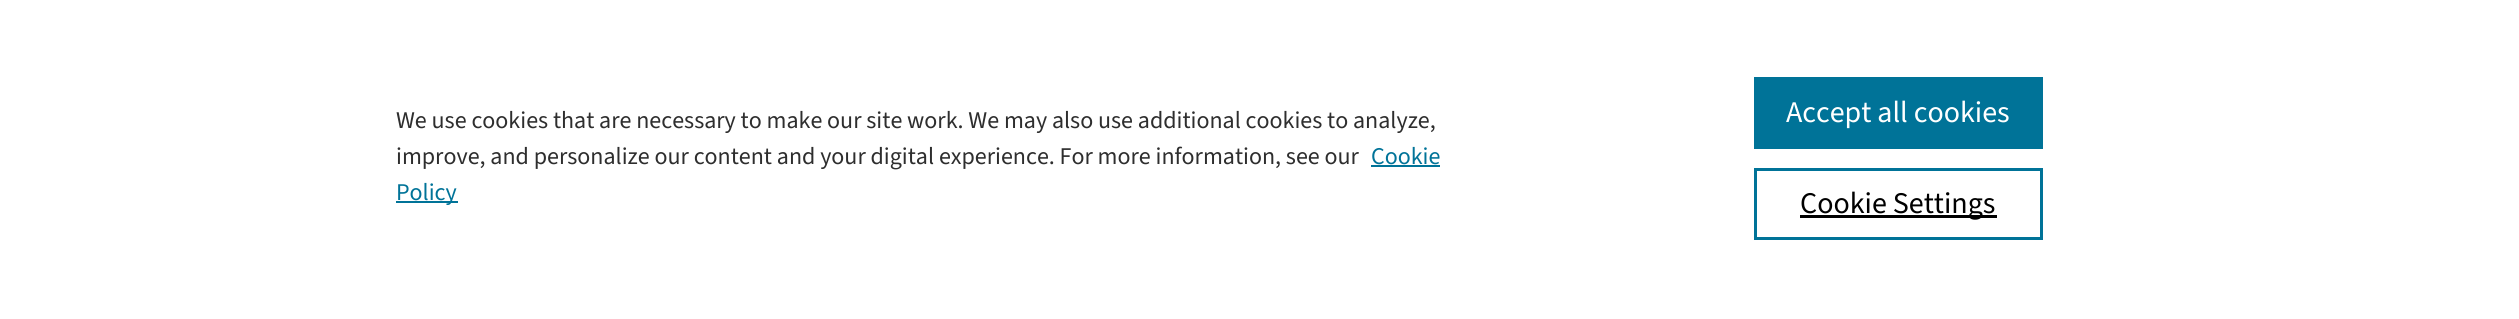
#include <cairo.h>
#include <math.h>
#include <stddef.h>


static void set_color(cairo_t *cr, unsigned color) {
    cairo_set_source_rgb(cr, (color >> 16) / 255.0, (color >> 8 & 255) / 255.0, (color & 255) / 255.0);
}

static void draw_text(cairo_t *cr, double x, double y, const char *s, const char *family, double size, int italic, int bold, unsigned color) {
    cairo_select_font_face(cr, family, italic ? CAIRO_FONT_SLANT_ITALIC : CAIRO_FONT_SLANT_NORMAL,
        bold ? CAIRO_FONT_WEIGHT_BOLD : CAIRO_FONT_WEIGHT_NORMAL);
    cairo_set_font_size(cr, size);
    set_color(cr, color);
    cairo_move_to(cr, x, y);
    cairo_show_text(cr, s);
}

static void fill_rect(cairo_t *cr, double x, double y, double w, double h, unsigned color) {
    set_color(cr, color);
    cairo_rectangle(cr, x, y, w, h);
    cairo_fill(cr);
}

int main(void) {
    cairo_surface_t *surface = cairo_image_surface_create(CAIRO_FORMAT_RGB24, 2519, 319);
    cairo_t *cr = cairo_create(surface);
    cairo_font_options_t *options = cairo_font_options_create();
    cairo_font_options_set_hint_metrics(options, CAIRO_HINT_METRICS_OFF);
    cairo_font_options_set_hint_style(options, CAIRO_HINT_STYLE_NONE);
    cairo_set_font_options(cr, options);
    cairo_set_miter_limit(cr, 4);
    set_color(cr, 0xFFFFFF);
    cairo_paint(cr);
    draw_text(cr, 396, 128, "We use cookies that are necessary to make our site work. We may also use additional cookies to analyze,", "Source Sans 3", 24, 0, 0, 0x2E2E2E);
    draw_text(cr, 396, 164, "improve, and personalize our content and your digital experience. For more information, see our", "Source Sans 3", 24, 0, 0, 0x2E2E2E);
    draw_text(cr, 1371, 164, "Cookie", "Source Sans 3", 24, 0, 0, 0x007398);
    fill_rect(cr, 1371, 165, 69, 2, 0x007398);
    fill_rect(cr, 396, 201, 62, 2, 0x007398);
    draw_text(cr, 396, 200, "Policy", "Source Sans 3", 24, 0, 0, 0x007398);
    fill_rect(cr, 1754, 77, 289, 72, 0x007398);
    draw_text(cr, 1786, 122, "Accept all cookies", "Source Sans 3", 30, 0, 0, 0xFFFFFF);
    cairo_rectangle(cr, 1755.5, 169.5, 286, 69);
    set_color(cr, 0x007398);
    cairo_set_line_width(cr, 3);
    cairo_stroke(cr);
    fill_rect(cr, 1800, 215, 197, 3, 0x000000);
    draw_text(cr, 1800, 213, "Cookie Settings", "Source Sans 3", 30, 0, 0, 0x000000);
    cairo_surface_write_to_png(surface, "output.png");
    cairo_font_options_destroy(options);
    cairo_destroy(cr);
    cairo_surface_destroy(surface);
    return 0;
}
